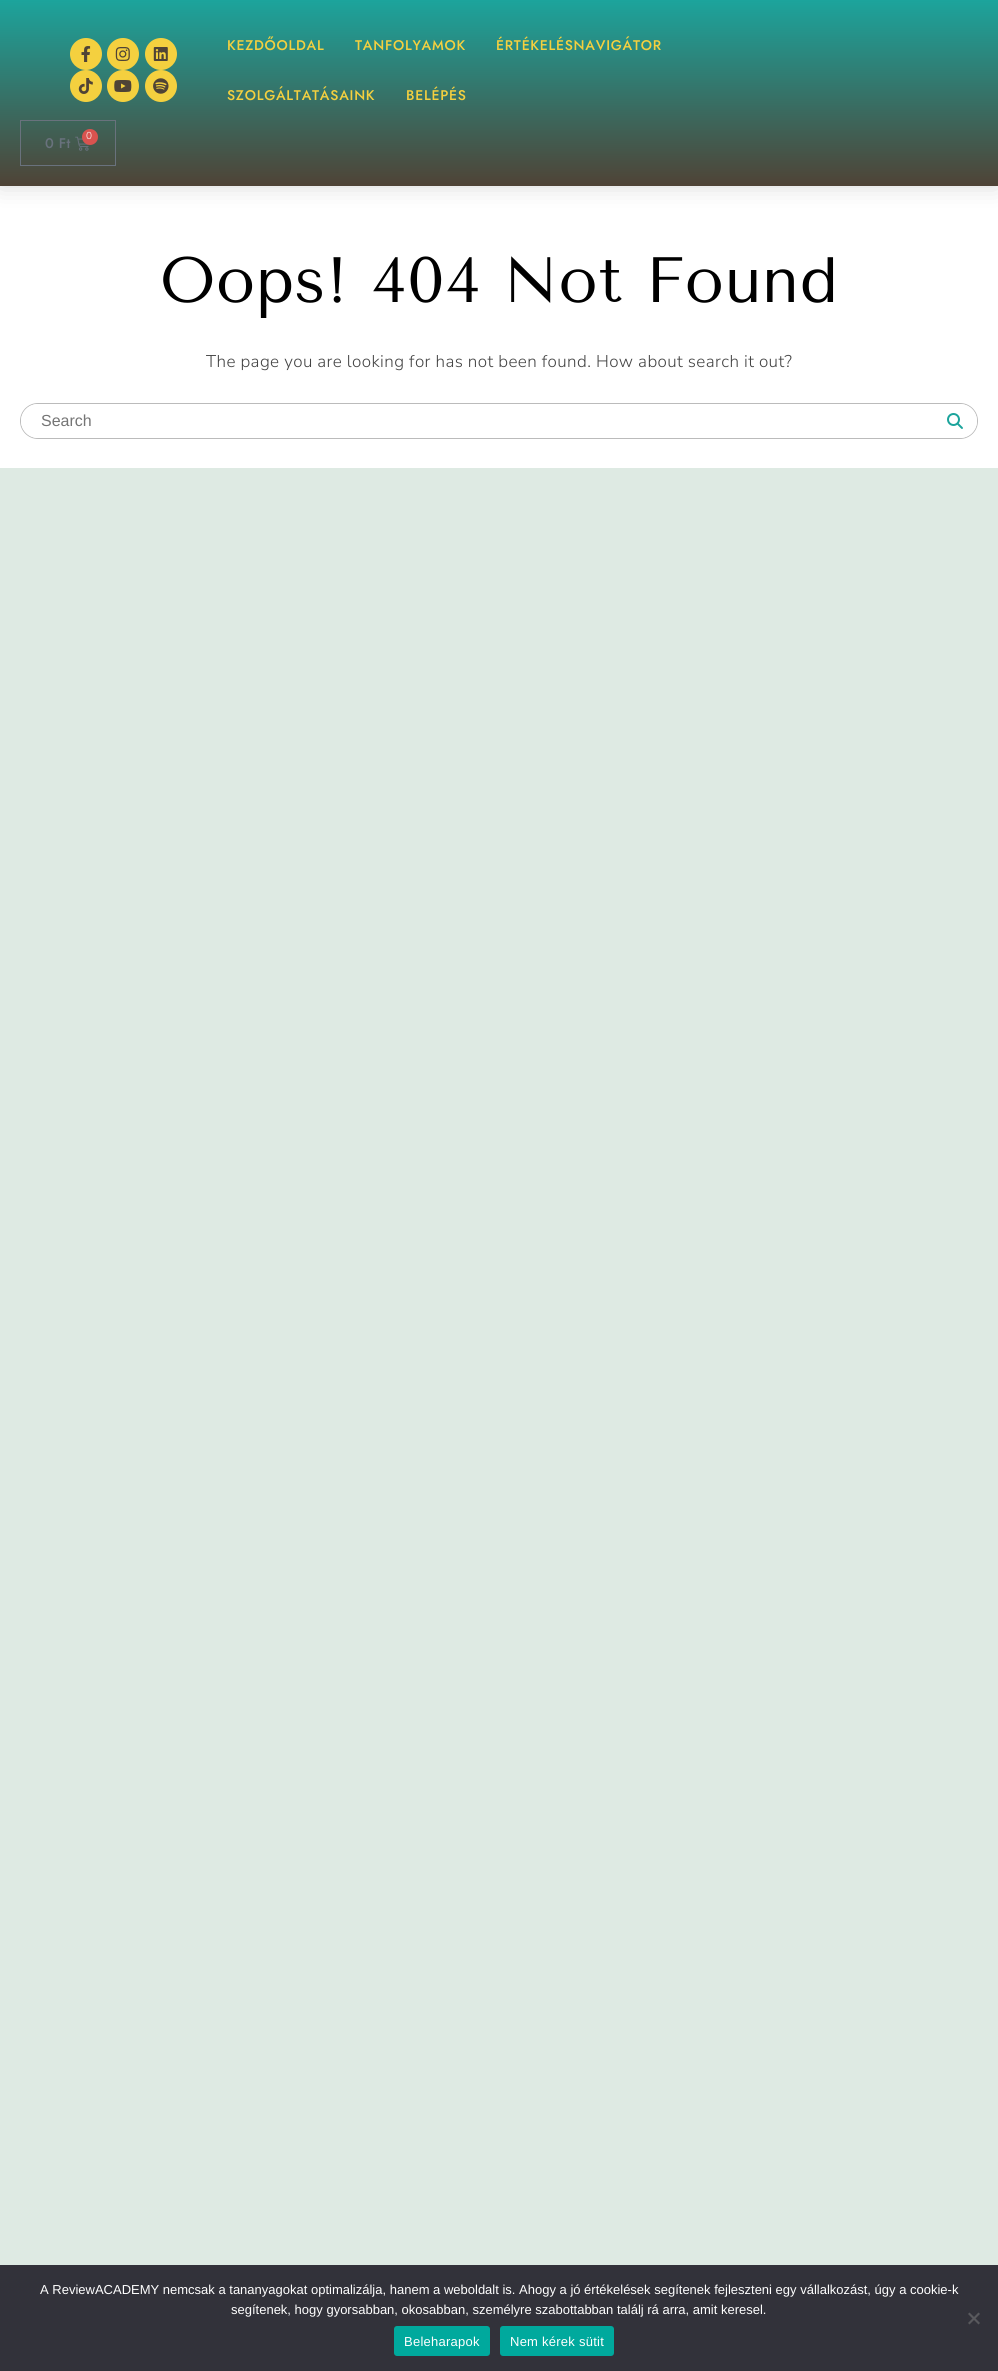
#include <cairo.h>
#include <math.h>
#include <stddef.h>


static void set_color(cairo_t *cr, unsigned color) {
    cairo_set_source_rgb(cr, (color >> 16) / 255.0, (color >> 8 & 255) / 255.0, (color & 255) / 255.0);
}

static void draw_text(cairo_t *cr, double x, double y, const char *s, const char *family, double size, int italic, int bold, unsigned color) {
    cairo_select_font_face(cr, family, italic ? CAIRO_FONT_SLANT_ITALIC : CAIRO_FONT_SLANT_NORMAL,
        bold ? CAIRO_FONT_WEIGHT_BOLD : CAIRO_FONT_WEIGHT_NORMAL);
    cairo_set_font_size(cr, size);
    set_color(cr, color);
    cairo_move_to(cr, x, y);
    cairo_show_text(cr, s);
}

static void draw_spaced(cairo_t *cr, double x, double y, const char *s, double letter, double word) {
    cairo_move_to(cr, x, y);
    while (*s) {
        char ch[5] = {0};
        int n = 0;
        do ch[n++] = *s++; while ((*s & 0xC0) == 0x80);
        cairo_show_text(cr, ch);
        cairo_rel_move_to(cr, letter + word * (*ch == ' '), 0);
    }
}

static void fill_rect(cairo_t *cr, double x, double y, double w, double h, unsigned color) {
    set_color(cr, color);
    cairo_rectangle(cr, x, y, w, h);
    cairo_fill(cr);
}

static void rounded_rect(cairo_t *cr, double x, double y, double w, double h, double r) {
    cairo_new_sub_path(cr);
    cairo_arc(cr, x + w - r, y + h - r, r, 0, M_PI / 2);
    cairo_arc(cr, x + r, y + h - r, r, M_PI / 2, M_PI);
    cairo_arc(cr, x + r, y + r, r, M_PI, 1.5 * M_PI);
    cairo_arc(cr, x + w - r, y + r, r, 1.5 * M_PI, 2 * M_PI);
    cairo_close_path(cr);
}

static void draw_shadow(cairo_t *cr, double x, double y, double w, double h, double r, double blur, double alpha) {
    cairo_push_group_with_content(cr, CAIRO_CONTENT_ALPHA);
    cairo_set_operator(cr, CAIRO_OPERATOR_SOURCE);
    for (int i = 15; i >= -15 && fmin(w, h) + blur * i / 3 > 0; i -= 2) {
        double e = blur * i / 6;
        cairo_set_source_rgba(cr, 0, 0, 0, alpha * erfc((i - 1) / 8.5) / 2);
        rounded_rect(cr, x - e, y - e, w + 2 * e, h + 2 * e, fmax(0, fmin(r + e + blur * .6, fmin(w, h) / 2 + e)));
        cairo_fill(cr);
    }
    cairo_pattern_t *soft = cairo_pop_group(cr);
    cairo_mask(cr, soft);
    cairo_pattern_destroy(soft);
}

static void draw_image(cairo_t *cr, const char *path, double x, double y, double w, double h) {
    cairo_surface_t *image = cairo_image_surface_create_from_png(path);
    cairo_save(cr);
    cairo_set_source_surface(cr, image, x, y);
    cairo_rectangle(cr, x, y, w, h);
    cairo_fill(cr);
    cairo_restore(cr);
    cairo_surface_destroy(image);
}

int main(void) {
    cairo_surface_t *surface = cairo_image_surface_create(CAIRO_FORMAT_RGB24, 998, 2371);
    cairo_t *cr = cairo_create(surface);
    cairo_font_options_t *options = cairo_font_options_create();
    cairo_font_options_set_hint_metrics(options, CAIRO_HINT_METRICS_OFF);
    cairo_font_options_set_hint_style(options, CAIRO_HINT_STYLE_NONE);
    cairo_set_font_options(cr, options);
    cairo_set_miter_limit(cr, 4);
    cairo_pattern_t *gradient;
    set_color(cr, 0xDEEAE3);
    cairo_paint(cr);
    fill_rect(cr, 0, 186, 998, 282, 0xFFFFFF);
    set_color(cr, 0x000000);
    draw_shadow(cr, 0, 0, 998, 186, 0, 12, 0.15);
    gradient = cairo_pattern_create_linear(499, 0, 499, 186);
    cairo_pattern_add_color_stop_rgba(gradient, 0, 0.11, 0.643, 0.612, 1);
    cairo_pattern_add_color_stop_rgba(gradient, 1, 0.31, 0.263, 0.212, 1);
    cairo_set_source(cr, gradient);
    cairo_pattern_destroy(gradient);
    cairo_rectangle(cr, 0, 0, 998, 186);
    cairo_fill(cr);
    set_color(cr, 0xF4D03F);
    cairo_arc(cr, 86, 54, 16, 0, 2 * M_PI);
    cairo_fill(cr);
    draw_image(cr, "assets/img1.png", 81, 46, 10, 16);
    cairo_arc(cr, 123, 54, 16, 0, 2 * M_PI);
    cairo_fill(cr);
    draw_image(cr, "assets/img2.png", 115, 47, 15, 14);
    cairo_arc(cr, 161, 54, 16, 0, 2 * M_PI);
    cairo_fill(cr);
    draw_image(cr, "assets/img3.png", 153, 47, 15, 14);
    cairo_arc(cr, 86, 86, 16, 0, 2 * M_PI);
    cairo_fill(cr);
    draw_image(cr, "assets/img4.png", 78, 78, 15, 16);
    cairo_arc(cr, 123, 86, 16, 0, 2 * M_PI);
    cairo_fill(cr);
    draw_image(cr, "assets/img5.png", 114, 80, 18, 12);
    cairo_arc(cr, 161, 86, 16, 0, 2 * M_PI);
    cairo_fill(cr);
    draw_image(cr, "assets/img6.png", 153, 78, 16, 16);
    cairo_select_font_face(cr, "Jost Medium", CAIRO_FONT_SLANT_NORMAL, CAIRO_FONT_WEIGHT_NORMAL);
    cairo_set_font_size(cr, 14);
    draw_spaced(cr, 227, 50, "KEZDŐOLDAL", 0.75, 0);
    draw_spaced(cr, 355, 50, "TANFOLYAMOK", 0.75, 0);
    draw_spaced(cr, 496, 50, "ÉRTÉKELÉSNAVIGÁTOR", 0.75, 0);
    draw_spaced(cr, 227, 100, "SZOLGÁLTATÁSAINK", 0.75, 0);
    draw_spaced(cr, 406, 100, "BELÉPÉS", 0.75, 0);
    cairo_rectangle(cr, 20.5, 120.5, 95, 45);
    set_color(cr, 0x69727D);
    cairo_set_line_width(cr, 1);
    cairo_stroke(cr);
    draw_image(cr, "assets/img7.png", 75, 136, 14, 15);
    set_color(cr, 0xD9534F);
    cairo_arc(cr, 90, 137, 8, 0, 2 * M_PI);
    cairo_fill(cr);
    cairo_select_font_face(cr, "Nunito Sans Light", CAIRO_FONT_SLANT_NORMAL, CAIRO_FONT_WEIGHT_NORMAL);
    cairo_set_font_size(cr, 10);
    set_color(cr, 0xFFFFFF);
    draw_spaced(cr, 86, 139, "0", 0.4, 0);
    cairo_select_font_face(cr, "Jost Medium", CAIRO_FONT_SLANT_NORMAL, CAIRO_FONT_WEIGHT_NORMAL);
    cairo_set_font_size(cr, 14);
    set_color(cr, 0x69727D);
    draw_spaced(cr, 45, 148, "0 Ft", 0.4, 0);
    cairo_select_font_face(cr, "Tenor Sans", CAIRO_FONT_SLANT_NORMAL, CAIRO_FONT_WEIGHT_NORMAL);
    cairo_set_font_size(cr, 64);
    set_color(cr, 0x000000);
    draw_spaced(cr, 160, 302, "Oops! 404 Not Found", 0.4, 0);
    cairo_select_font_face(cr, "Nunito Sans Light", CAIRO_FONT_SLANT_NORMAL, CAIRO_FONT_WEIGHT_NORMAL);
    cairo_set_font_size(cr, 17);
    set_color(cr, 0x444444);
    draw_spaced(cr, 206, 367, "The page you are looking for has not been found. How about search it out?", 0.4, 0);
    rounded_rect(cr, 20.5, 403.5, 957, 35, 17.5);
    set_color(cr, 0xBBBBBB);
    cairo_stroke(cr);
    set_color(cr, 0xFFFFFF);
    rounded_rect(cr, 21, 404, 956, 34, 17);
    cairo_fill(cr);
    draw_text(cr, 41, 426, "Search", "Liberation Sans", 16, 0, 0, 0x757575);
    draw_image(cr, "assets/img8.png", 947, 413, 16, 16);
    fill_rect(cr, 0, 2265, 998, 106, 0x32323A);
    draw_text(cr, 40, 2294, "A ReviewACADEMY nemcsak a tananyagokat optimalizálja, hanem a weboldalt is. Ahogy a jó értékelések segítenek fejleszteni egy vállalkozást, úgy a cookie-k", "Liberation Sans", 13, 0, 0, 0xFFFFFF);
    draw_text(cr, 231, 2314, "segítenek, hogy gyorsabban, okosabban, személyre szabottabban találj rá arra, amit keresel.", "Liberation Sans", 13, 0, 0, 0xFFFFFF);
    set_color(cr, 0x59595D);
    cairo_new_path(cr);
    cairo_move_to(cr, 978.5, 2312.5);
    cairo_line_to(cr, 980, 2314);
    cairo_line_to(cr, 969.5, 2324.5);
    cairo_line_to(cr, 968, 2323);
    cairo_close_path(cr);
    cairo_fill(cr);
    cairo_new_path(cr);
    cairo_move_to(cr, 968, 2314);
    cairo_line_to(cr, 969.5, 2312.5);
    cairo_line_to(cr, 980, 2323);
    cairo_line_to(cr, 978.5, 2324.5);
    cairo_close_path(cr);
    cairo_fill(cr);
    set_color(cr, 0x00A99D);
    rounded_rect(cr, 394, 2326, 96, 30, 3);
    cairo_fill(cr);
    set_color(cr, 0xFFFFFF);
    draw_spaced(cr, 404, 2346, "Beleharapok", 0.25, 0);
    set_color(cr, 0x00A99D);
    rounded_rect(cr, 500, 2326, 114, 30, 3);
    cairo_fill(cr);
    set_color(cr, 0xFFFFFF);
    draw_spaced(cr, 510, 2346, "Nem kérek sütit", 0.25, 0);
    cairo_surface_write_to_png(surface, "output.png");
    cairo_font_options_destroy(options);
    cairo_destroy(cr);
    cairo_surface_destroy(surface);
    return 0;
}
